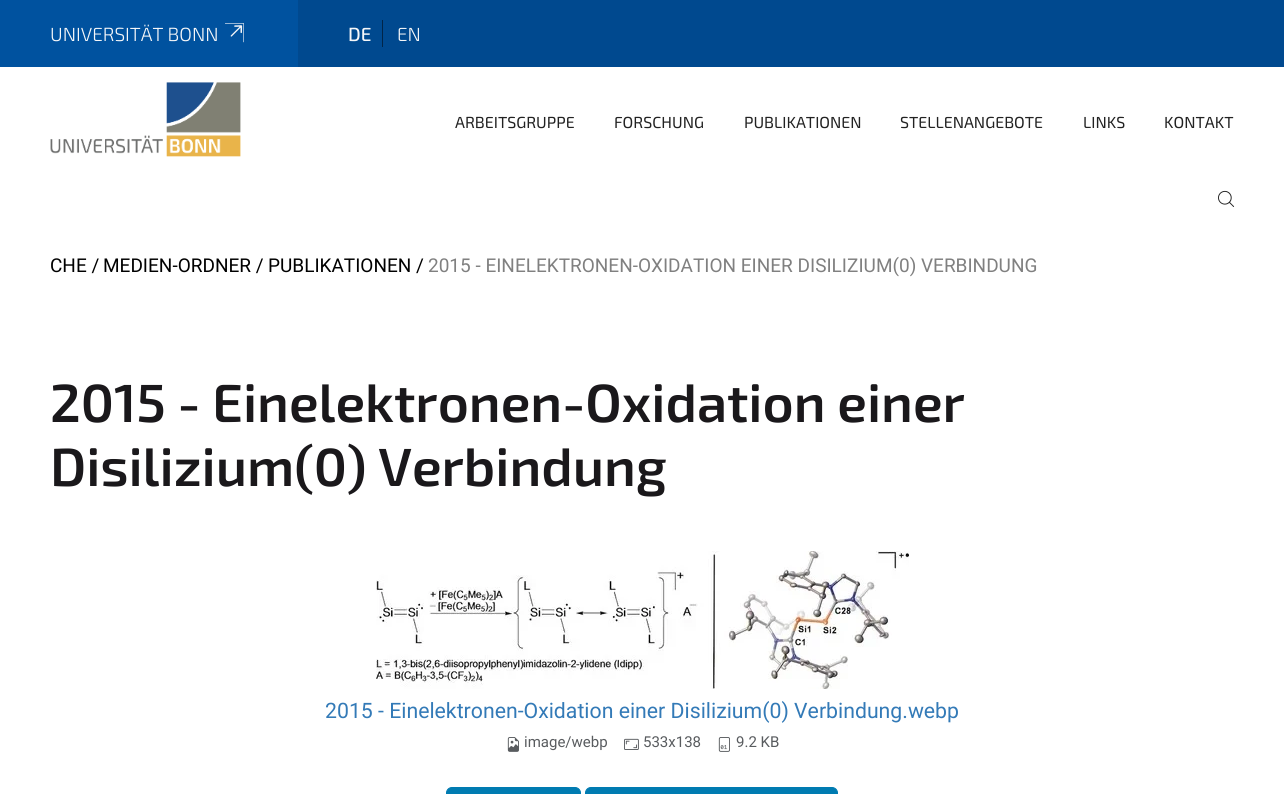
#include <cairo.h>
#include <math.h>
#include <stddef.h>


static void set_color(cairo_t *cr, unsigned color) {
    cairo_set_source_rgb(cr, (color >> 16) / 255.0, (color >> 8 & 255) / 255.0, (color & 255) / 255.0);
}

static void draw_text(cairo_t *cr, double x, double y, const char *s, const char *family, double size, int italic, int bold, unsigned color) {
    cairo_select_font_face(cr, family, italic ? CAIRO_FONT_SLANT_ITALIC : CAIRO_FONT_SLANT_NORMAL,
        bold ? CAIRO_FONT_WEIGHT_BOLD : CAIRO_FONT_WEIGHT_NORMAL);
    cairo_set_font_size(cr, size);
    set_color(cr, color);
    cairo_move_to(cr, x, y);
    cairo_show_text(cr, s);
}

static void fill_rect(cairo_t *cr, double x, double y, double w, double h, unsigned color) {
    set_color(cr, color);
    cairo_rectangle(cr, x, y, w, h);
    cairo_fill(cr);
}

static void rounded_rect(cairo_t *cr, double x, double y, double w, double h, double r) {
    cairo_new_sub_path(cr);
    cairo_arc(cr, x + w - r, y + h - r, r, 0, M_PI / 2);
    cairo_arc(cr, x + r, y + h - r, r, M_PI / 2, M_PI);
    cairo_arc(cr, x + r, y + r, r, M_PI, 1.5 * M_PI);
    cairo_arc(cr, x + w - r, y + r, r, 1.5 * M_PI, 2 * M_PI);
    cairo_close_path(cr);
}

static void draw_image(cairo_t *cr, const char *path, double x, double y, double w, double h) {
    cairo_surface_t *image = cairo_image_surface_create_from_png(path);
    cairo_save(cr);
    cairo_set_source_surface(cr, image, x, y);
    cairo_rectangle(cr, x, y, w, h);
    cairo_fill(cr);
    cairo_restore(cr);
    cairo_surface_destroy(image);
}

int main(void) {
    cairo_surface_t *surface = cairo_image_surface_create(CAIRO_FORMAT_RGB24, 1284, 794);
    cairo_t *cr = cairo_create(surface);
    cairo_font_options_t *options = cairo_font_options_create();
    cairo_font_options_set_hint_metrics(options, CAIRO_HINT_METRICS_OFF);
    cairo_font_options_set_hint_style(options, CAIRO_HINT_STYLE_NONE);
    cairo_set_font_options(cr, options);
    cairo_set_miter_limit(cr, 4);
    set_color(cr, 0xFFFFFF);
    cairo_paint(cr);
    fill_rect(cr, 298, 0, 986, 67, 0x00498F);
    fill_rect(cr, 0, 0, 298, 67, 0x00529F);
    draw_text(cr, 50, 41, "UNIVERSITÄT BONN", "Exo 2 Light", 19, 0, 0, 0xF6F7F9);
    draw_image(cr, "assets/img1.png", 225, 23, 19, 20);
    fill_rect(cr, 382, 20, 1, 27, 0x012548);
    draw_text(cr, 348, 41, "DE", "Exo 2 Medium", 19, 0, 0, 0xF6F7F9);
    draw_text(cr, 397, 41, "EN", "Exo 2 Light", 19, 0, 0, 0xF6F7F9);
    draw_image(cr, "assets/img2.png", 50, 82, 191, 75);
    draw_text(cr, 455, 128, "ARBEITSGRUPPE", "Exo 2", 16, 0, 0, 0x222222);
    draw_text(cr, 614, 128, "FORSCHUNG", "Exo 2", 16, 0, 0, 0x222222);
    draw_text(cr, 744, 128, "PUBLIKATIONEN", "Exo 2", 16, 0, 0, 0x222222);
    draw_text(cr, 900, 128, "STELLENANGEBOTE", "Exo 2", 16, 0, 0, 0x222222);
    draw_text(cr, 1083, 128, "LINKS", "Exo 2", 16, 0, 0, 0x222222);
    draw_text(cr, 1164, 128, "KONTAKT", "Exo 2", 16, 0, 0, 0x222222);
    draw_image(cr, "assets/img3.png", 1218, 190, 17, 17);
    draw_text(cr, 50, 272, "CHE /", "Roboto", 19, 0, 0, 0x000000);
    draw_text(cr, 103, 272, "MEDIEN-ORDNER /", "Roboto", 19, 0, 0, 0x000000);
    draw_text(cr, 268, 272, "PUBLIKATIONEN /", "Roboto", 19, 0, 0, 0x000000);
    draw_text(cr, 428, 272, "2015 - EINELEKTRONEN-OXIDATION EINER DISILIZIUM(0) VERBINDUNG", "Roboto", 19, 0, 0, 0x808080);
    draw_text(cr, 50, 422, "2015 - Einelektronen-Oxidation einer", "Exo 2 SemiBold", 53.7, 0, 0, 0x1A181B);
    draw_text(cr, 50, 486, "Disilizium(0) Verbindung", "Exo 2 SemiBold", 53.7, 0, 0, 0x1A181B);
    draw_image(cr, "assets/img4.png", 376, 551, 533, 138);
    draw_text(cr, 325, 718, "2015 - Einelektronen-Oxidation einer Disilizium(0) Verbindung.webp", "Roboto", 21.25, 0, 0, 0x337AB7);
    draw_image(cr, "assets/img5.png", 507, 737, 12, 15);
    draw_text(cr, 524, 747, "image/webp", "Roboto", 15, 0, 0, 0x595C5F);
    draw_image(cr, "assets/img6.png", 624, 738, 15, 12);
    draw_text(cr, 643, 747, "533x138", "Roboto", 15, 0, 0, 0x595C5F);
    draw_image(cr, "assets/img7.png", 718, 737, 12, 15);
    draw_text(cr, 736, 747, "9.2 KB", "Roboto", 15, 0, 0, 0x595C5F);
    set_color(cr, 0x007BB1);
    rounded_rect(cr, 446.5, 787.5, 134, 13, 5.5);
    cairo_fill_preserve(cr);
    cairo_set_line_width(cr, 1);
    cairo_stroke(cr);
    rounded_rect(cr, 585.5, 787.5, 252, 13, 5.5);
    cairo_fill_preserve(cr);
    cairo_stroke(cr);
    cairo_surface_write_to_png(surface, "output.png");
    cairo_font_options_destroy(options);
    cairo_destroy(cr);
    cairo_surface_destroy(surface);
    return 0;
}
